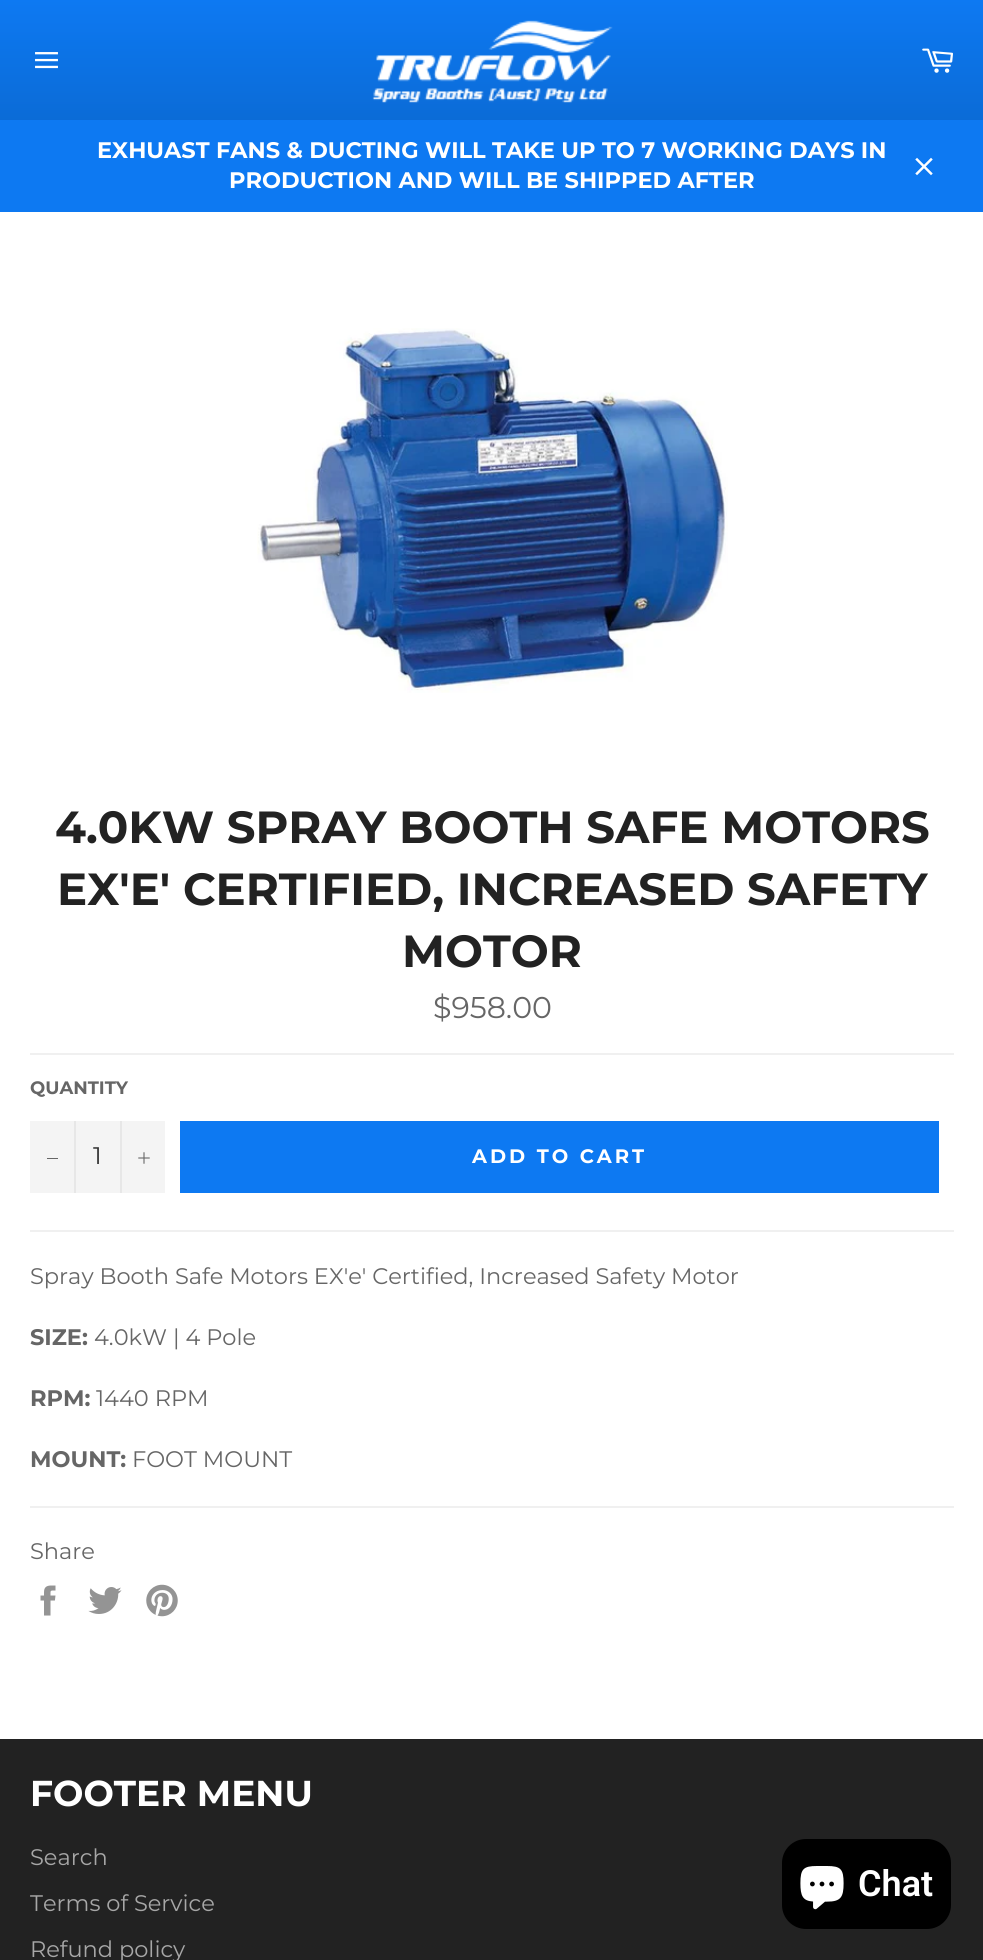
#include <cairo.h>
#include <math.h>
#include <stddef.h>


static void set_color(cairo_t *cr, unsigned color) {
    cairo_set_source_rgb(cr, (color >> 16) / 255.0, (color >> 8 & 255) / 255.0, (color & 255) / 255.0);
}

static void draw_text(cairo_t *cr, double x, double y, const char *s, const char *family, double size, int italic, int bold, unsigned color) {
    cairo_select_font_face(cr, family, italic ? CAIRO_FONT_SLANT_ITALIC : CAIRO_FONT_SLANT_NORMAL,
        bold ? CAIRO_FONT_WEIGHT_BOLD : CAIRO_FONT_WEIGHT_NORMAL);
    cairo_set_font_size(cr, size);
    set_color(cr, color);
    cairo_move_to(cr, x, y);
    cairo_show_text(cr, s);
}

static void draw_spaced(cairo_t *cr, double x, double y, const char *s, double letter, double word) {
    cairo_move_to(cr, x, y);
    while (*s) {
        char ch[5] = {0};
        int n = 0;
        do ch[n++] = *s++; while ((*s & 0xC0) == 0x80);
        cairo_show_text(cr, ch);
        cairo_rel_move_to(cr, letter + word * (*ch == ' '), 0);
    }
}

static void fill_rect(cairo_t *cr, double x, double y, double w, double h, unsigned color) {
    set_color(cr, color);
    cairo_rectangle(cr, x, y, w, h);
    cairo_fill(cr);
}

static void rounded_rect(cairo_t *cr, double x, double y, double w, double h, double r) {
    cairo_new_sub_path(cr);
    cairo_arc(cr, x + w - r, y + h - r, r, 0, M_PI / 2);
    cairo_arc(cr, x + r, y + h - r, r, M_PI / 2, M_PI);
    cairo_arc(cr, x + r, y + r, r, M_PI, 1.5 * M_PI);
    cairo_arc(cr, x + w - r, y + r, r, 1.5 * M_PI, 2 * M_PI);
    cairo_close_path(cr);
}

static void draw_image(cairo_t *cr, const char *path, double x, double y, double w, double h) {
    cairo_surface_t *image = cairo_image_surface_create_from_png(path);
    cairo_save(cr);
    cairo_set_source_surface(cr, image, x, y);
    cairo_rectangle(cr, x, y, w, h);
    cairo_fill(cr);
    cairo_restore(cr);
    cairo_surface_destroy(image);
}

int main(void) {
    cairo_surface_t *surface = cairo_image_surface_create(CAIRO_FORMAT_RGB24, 983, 1960);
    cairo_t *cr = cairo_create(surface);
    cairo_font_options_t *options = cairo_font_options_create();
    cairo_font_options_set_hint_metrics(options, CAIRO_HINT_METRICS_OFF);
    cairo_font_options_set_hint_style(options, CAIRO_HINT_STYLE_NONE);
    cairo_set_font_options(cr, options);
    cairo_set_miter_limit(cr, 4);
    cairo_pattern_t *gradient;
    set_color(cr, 0xFFFFFF);
    cairo_paint(cr);
    gradient = cairo_pattern_create_linear(492, 0, 492, 212);
    cairo_pattern_add_color_stop_rgba(gradient, 0, 0.051, 0.475, 0.949, 1);
    cairo_pattern_add_color_stop_rgba(gradient, 1, 0.039, 0.38, 0.761, 1);
    cairo_set_source(cr, gradient);
    cairo_pattern_destroy(gradient);
    cairo_rectangle(cr, 0, 0, 983, 120);
    cairo_fill(cr);
    draw_image(cr, "assets/img1.png", 35, 52, 23, 17);
    draw_image(cr, "assets/img2.png", 372, 20, 241, 83);
    draw_image(cr, "assets/img3.png", 922, 48, 31, 25);
    fill_rect(cr, 0, 120, 983, 92, 0x0D79F2);
    draw_text(cr, 97, 158, "EXHUAST FANS & DUCTING WILL TAKE UP TO 7 WORKING DAYS IN", "Montserrat", 22.5, 0, 1, 0xFFFFFF);
    draw_text(cr, 229, 188, "PRODUCTION AND WILL BE SHIPPED AFTER", "Montserrat", 22.5, 0, 1, 0xFFFFFF);
    draw_image(cr, "assets/img4.png", 915, 157, 18, 19);
    draw_image(cr, "assets/img5.png", 257, 328, 471, 365);
    draw_text(cr, 55, 843, "4.0KW SPRAY BOOTH SAFE MOTORS", "Montserrat", 45, 0, 1, 0x222222);
    draw_text(cr, 57, 905, "EX'E' CERTIFIED, INCREASED SAFETY", "Montserrat", 45, 0, 1, 0x222222);
    draw_text(cr, 402, 967, "MOTOR", "Montserrat", 45, 0, 1, 0x222222);
    draw_text(cr, 433, 1018, "$958.00", "Montserrat", 30, 0, 0, 0x666666);
    fill_rect(cr, 30, 1053, 924, 2, 0xF0F0F0);
    draw_text(cr, 30, 1094, "QUANTITY", "Montserrat", 18, 0, 1, 0x666666);
    fill_rect(cr, 30, 1121, 135, 72, 0xF4F4F4);
    fill_rect(cr, 74, 1121, 2, 72, 0xE7E7E7);
    fill_rect(cr, 47, 1158, 11, 1, 0x666666);
    draw_text(cr, 93, 1164, "1", "Montserrat", 24, 0, 0, 0x333333);
    fill_rect(cr, 120, 1121, 2, 72, 0xE7E7E7);
    draw_image(cr, "assets/img6.png", 138, 1152, 12, 12);
    fill_rect(cr, 180, 1121, 759, 72, 0x0D79F2);
    cairo_select_font_face(cr, "Montserrat", CAIRO_FONT_SLANT_NORMAL, CAIRO_FONT_WEIGHT_BOLD);
    cairo_set_font_size(cr, 19.5);
    set_color(cr, 0xFFFFFF);
    draw_spaced(cr, 472, 1163, "ADD TO CART", 3, 0);
    fill_rect(cr, 30, 1230, 924, 2, 0xF0F0F0);
    draw_text(cr, 30, 1284, "Spray Booth Safe Motors EX'e' Certified, Increased Safety Motor", "Montserrat", 22.5, 0, 0, 0x666666);
    draw_text(cr, 30, 1345, "SIZE:", "Montserrat", 22.5, 0, 1, 0x666666);
    draw_text(cr, 94, 1345, "4.0kW | 4 Pole", "Montserrat", 22.5, 0, 0, 0x666666);
    draw_text(cr, 30, 1406, "RPM:", "Montserrat", 22.5, 0, 1, 0x666666);
    draw_text(cr, 96, 1406, "1440 RPM", "Montserrat", 22.5, 0, 0, 0x666666);
    draw_text(cr, 30, 1467, "MOUNT:", "Montserrat", 22.5, 0, 1, 0x666666);
    draw_text(cr, 132, 1467, "FOOT MOUNT", "Montserrat", 22.5, 0, 0, 0x666666);
    fill_rect(cr, 30, 1506, 924, 2, 0xF0F0F0);
    draw_text(cr, 30, 1559, "Share", "Montserrat", 22.5, 0, 0, 0x666666);
    draw_image(cr, "assets/img7.png", 40, 1585, 16, 31);
    draw_image(cr, "assets/img8.png", 88, 1587, 34, 27);
    draw_image(cr, "assets/img9.png", 146, 1584, 32, 33);
    fill_rect(cr, 0, 1739, 983, 221, 0x222222);
    draw_text(cr, 30, 1806, "FOOTER MENU", "Montserrat", 36, 0, 1, 0xFFFFFF);
    draw_text(cr, 30, 1865, "Search", "Montserrat", 22.5, 0, 0, 0xA7A7A7);
    draw_text(cr, 30, 1911, "Terms of Service", "Montserrat", 22.5, 0, 0, 0xA7A7A7);
    draw_text(cr, 30, 1957, "Refund policy", "Montserrat", 22.5, 0, 0, 0xA7A7A7);
    set_color(cr, 0x000000);
    rounded_rect(cr, 782, 1839, 169, 90, 24);
    cairo_fill(cr);
    draw_image(cr, "assets/img10.png", 800, 1866, 44, 44);
    draw_text(cr, 858, 1896, "Chat", "Roboto SemiBold", 36, 0, 0, 0xFFFFFF);
    cairo_surface_write_to_png(surface, "output.png");
    cairo_font_options_destroy(options);
    cairo_destroy(cr);
    cairo_surface_destroy(surface);
    return 0;
}
